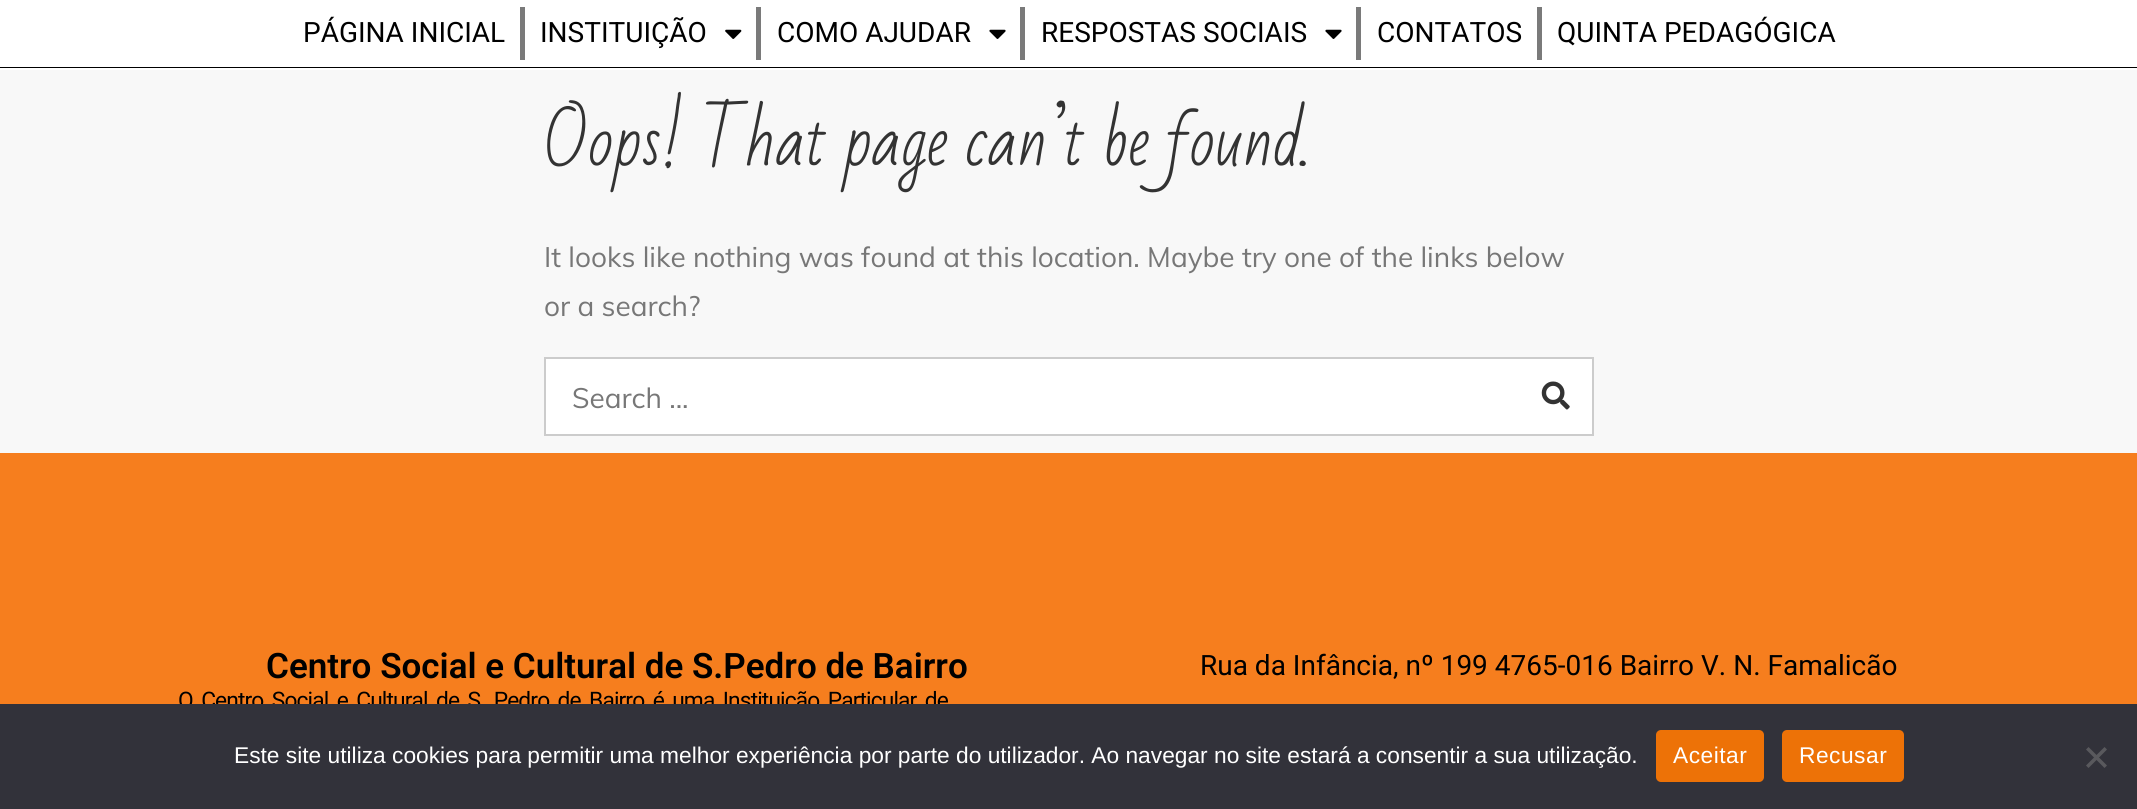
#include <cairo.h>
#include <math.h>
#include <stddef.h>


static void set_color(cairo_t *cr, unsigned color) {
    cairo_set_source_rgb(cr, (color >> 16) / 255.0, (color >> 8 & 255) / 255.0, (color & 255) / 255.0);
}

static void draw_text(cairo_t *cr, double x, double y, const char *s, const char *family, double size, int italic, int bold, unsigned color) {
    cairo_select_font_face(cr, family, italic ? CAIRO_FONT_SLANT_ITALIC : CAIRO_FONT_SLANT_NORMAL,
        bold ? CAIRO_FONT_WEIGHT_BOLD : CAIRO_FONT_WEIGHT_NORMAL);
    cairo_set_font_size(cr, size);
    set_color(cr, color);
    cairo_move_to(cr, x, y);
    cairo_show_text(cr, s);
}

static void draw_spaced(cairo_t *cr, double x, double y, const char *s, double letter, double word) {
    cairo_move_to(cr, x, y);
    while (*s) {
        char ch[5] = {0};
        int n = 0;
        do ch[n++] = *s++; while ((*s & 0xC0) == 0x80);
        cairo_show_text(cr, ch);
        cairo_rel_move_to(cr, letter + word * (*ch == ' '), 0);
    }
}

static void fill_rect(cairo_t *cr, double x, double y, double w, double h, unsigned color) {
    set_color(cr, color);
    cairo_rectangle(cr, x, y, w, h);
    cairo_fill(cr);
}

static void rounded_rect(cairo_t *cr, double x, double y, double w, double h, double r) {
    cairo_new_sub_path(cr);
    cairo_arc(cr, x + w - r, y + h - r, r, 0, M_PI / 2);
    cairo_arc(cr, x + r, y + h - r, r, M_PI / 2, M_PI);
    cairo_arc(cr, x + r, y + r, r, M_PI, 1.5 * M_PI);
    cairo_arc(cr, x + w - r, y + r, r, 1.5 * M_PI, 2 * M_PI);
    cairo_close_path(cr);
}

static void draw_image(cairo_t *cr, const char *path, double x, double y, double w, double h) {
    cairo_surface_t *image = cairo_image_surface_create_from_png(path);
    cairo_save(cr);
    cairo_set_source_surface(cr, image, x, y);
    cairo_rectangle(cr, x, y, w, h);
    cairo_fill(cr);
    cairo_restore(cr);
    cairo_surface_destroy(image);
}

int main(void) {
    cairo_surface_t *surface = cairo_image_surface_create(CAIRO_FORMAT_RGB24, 2137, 809);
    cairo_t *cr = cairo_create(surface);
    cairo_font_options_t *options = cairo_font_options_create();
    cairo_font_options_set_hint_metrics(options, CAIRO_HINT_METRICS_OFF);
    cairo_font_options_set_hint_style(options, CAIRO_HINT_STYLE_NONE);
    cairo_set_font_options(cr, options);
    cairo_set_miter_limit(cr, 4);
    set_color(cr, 0xF8F8F8);
    cairo_paint(cr);
    fill_rect(cr, 0, 67, 2137, 1, 0x000000);
    fill_rect(cr, 0, 0, 2137, 67, 0xFFFFFF);
    draw_text(cr, 303, 42, "PÁGINA INICIAL", "Roboto", 28, 0, 0, 0x000000);
    fill_rect(cr, 520, 7, 5, 53, 0x7A7A7A);
    draw_text(cr, 540, 42, "INSTITUIÇÃO", "Roboto", 28, 0, 0, 0x000000);
    draw_image(cr, "assets/img1.png", 725, 29, 17, 10);
    fill_rect(cr, 756, 7, 5, 53, 0x7A7A7A);
    draw_text(cr, 777, 42, "COMO AJUDAR", "Roboto", 28, 0, 0, 0x000000);
    draw_image(cr, "assets/img2.png", 989, 29, 17, 10);
    fill_rect(cr, 1020, 7, 5, 53, 0x7A7A7A);
    draw_text(cr, 1041, 42, "RESPOSTAS SOCIAIS", "Roboto", 28, 0, 0, 0x000000);
    draw_image(cr, "assets/img2.png", 1325, 29, 17, 10);
    fill_rect(cr, 1356, 7, 5, 53, 0x7A7A7A);
    draw_text(cr, 1377, 42, "CONTATOS", "Roboto", 28, 0, 0, 0x000000);
    fill_rect(cr, 1537, 7, 5, 53, 0x7A7A7A);
    draw_text(cr, 1557, 42, "QUINTA PEDAGÓGICA", "Roboto", 28, 0, 0, 0x000000);
    fill_rect(cr, 0, 68, 2137, 2, 0xFFFFFF);
    draw_text(cr, 544, 165, "Oops! That page can’t be found.", "Bad Script", 66.5, 0, 0, 0x333333);
    draw_text(cr, 544, 267, "It looks like nothing was found at this location. Maybe try one of the links below", "Muli", 28, 0, 0, 0x777777);
    draw_text(cr, 544, 316, "or a search?", "Muli", 28, 0, 0, 0x777777);
    set_color(cr, 0xFFFFFF);
    cairo_rectangle(cr, 545, 358, 1048, 77);
    cairo_fill_preserve(cr);
    set_color(cr, 0xCCCCCC);
    cairo_stroke(cr);
    draw_text(cr, 572, 408, "Search ...", "Muli", 28, 0, 0, 0x777777);
    draw_image(cr, "assets/img3.png", 1541, 381, 29, 29);
    fill_rect(cr, 0, 453, 2137, 251, 0xF67E1E);
    draw_text(cr, 266, 678, "Centro Social e Cultural de S.Pedro de Bairro", "Roboto SemiBold", 35, 0, 0, 0x000000);
    cairo_select_font_face(cr, "Roboto", CAIRO_FONT_SLANT_NORMAL, CAIRO_FONT_WEIGHT_NORMAL);
    cairo_set_font_size(cr, 22.75);
    draw_spaced(cr, 178, 708, "O Centro Social e Cultural de S. Pedro de Bairro é uma Instituição Particular de", -0.88, 3.6);
    draw_text(cr, 1200, 675, "Rua da Infância, nº 199 4765-016 Bairro V. N. Famalicão", "Roboto", 28, 0, 0, 0x000000);
    fill_rect(cr, 0, 704, 2137, 105, 0x32323A);
    draw_text(cr, 234, 763, "Este site utiliza cookies para permitir uma melhor experiência por parte do utilizador. Ao navegar no site estará a consentir a sua utilização.", "Liberation Sans", 22.75, 0, 0, 0xFFFFFF);
    set_color(cr, 0xED7207);
    rounded_rect(cr, 1656, 730, 108, 52, 5);
    cairo_fill(cr);
    set_color(cr, 0xFFFFFF);
    draw_spaced(cr, 1673, 763, "Aceitar", 0.5, 0);
    set_color(cr, 0xED7207);
    rounded_rect(cr, 1782, 730, 122, 52, 5);
    cairo_fill(cr);
    set_color(cr, 0xFFFFFF);
    draw_spaced(cr, 1799, 763, "Recusar", 0.5, 0);
    set_color(cr, 0x59595D);
    cairo_new_path(cr);
    cairo_move_to(cr, 2104.5, 747);
    cairo_line_to(cr, 2107, 749.5);
    cairo_line_to(cr, 2088.5, 768);
    cairo_line_to(cr, 2086, 765.5);
    cairo_close_path(cr);
    cairo_fill(cr);
    cairo_new_path(cr);
    cairo_move_to(cr, 2086, 749.5);
    cairo_line_to(cr, 2088.5, 747);
    cairo_line_to(cr, 2107, 765.5);
    cairo_line_to(cr, 2104.5, 768);
    cairo_close_path(cr);
    cairo_fill(cr);
    cairo_surface_write_to_png(surface, "output.png");
    cairo_font_options_destroy(options);
    cairo_destroy(cr);
    cairo_surface_destroy(surface);
    return 0;
}
